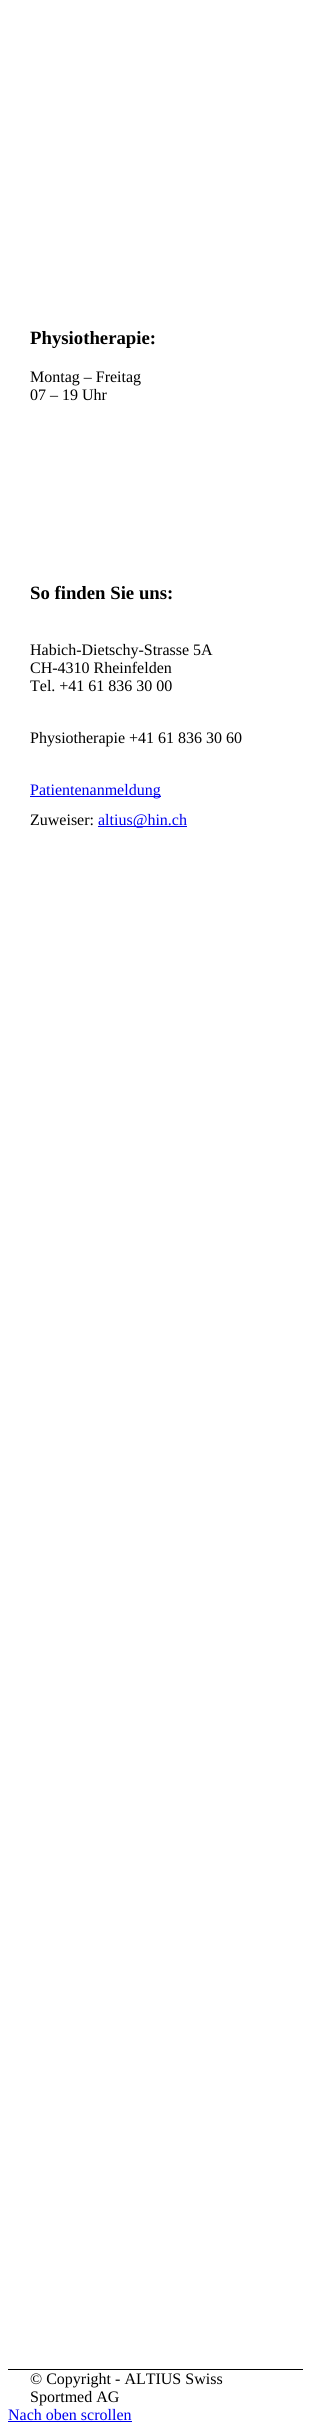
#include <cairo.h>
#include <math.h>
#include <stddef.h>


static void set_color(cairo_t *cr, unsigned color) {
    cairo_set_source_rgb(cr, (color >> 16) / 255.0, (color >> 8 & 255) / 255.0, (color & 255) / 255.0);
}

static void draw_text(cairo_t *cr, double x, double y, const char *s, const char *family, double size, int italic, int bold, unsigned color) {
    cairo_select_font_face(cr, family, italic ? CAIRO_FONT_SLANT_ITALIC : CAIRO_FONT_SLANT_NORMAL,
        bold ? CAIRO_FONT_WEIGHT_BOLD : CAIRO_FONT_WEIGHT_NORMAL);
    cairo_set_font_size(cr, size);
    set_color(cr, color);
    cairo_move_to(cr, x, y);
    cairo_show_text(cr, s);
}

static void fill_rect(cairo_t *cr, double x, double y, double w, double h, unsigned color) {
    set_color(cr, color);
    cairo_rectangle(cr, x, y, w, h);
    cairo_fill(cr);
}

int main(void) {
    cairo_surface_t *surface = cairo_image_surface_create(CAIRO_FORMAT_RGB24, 311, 2432);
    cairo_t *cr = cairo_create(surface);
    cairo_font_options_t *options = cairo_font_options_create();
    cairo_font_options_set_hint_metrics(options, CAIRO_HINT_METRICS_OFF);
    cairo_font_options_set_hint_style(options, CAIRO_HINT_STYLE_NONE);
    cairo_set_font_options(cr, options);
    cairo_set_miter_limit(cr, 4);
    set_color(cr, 0xFFFFFF);
    cairo_paint(cr);
    draw_text(cr, 30, 344, "Physiotherapie:", "Liberation Serif", 18.75, 0, 1, 0x000000);
    draw_text(cr, 30, 382, "Montag – Freitag", "Liberation Serif", 16, 0, 0, 0x000000);
    draw_text(cr, 30, 400, "07 – 19 Uhr", "Liberation Serif", 16, 0, 0, 0x000000);
    draw_text(cr, 30, 599, "So finden Sie uns:", "Liberation Serif", 18.75, 0, 1, 0x000000);
    draw_text(cr, 30, 655, "Habich-Dietschy-Strasse 5A", "Liberation Serif", 16, 0, 0, 0x000000);
    draw_text(cr, 30, 673, "CH-4310 Rheinfelden", "Liberation Serif", 16, 0, 0, 0x000000);
    draw_text(cr, 30, 691, "Tel. +41 61 836 30 00", "Liberation Serif", 16, 0, 0, 0x000000);
    draw_text(cr, 30, 743, "Physiotherapie +41 61 836 30 60", "Liberation Serif", 16, 0, 0, 0x000000);
    fill_rect(cr, 30, 796, 131, 1, 0x0000EE);
    draw_text(cr, 30, 795, "Patientenanmeldung", "Liberation Serif", 16, 0, 0, 0x0000EE);
    draw_text(cr, 30, 825, "Zuweiser:", "Liberation Serif", 16, 0, 0, 0x000000);
    fill_rect(cr, 98, 826, 89, 1, 0x0000EE);
    draw_text(cr, 98, 825, "altius@hin.ch", "Liberation Serif", 16, 0, 0, 0x0000EE);
    fill_rect(cr, 8, 2369, 295, 1, 0x000000);
    draw_text(cr, 30, 2384, "© Copyright - ALTIUS Swiss", "Liberation Serif", 16, 0, 0, 0x000000);
    draw_text(cr, 30, 2402, "Sportmed AG", "Liberation Serif", 16, 0, 0, 0x000000);
    draw_text(cr, 8, 2420, "Nach oben scrollen", "Liberation Serif", 16, 0, 0, 0x0000EE);
    fill_rect(cr, 8, 2421, 124, 1, 0x0000EE);
    cairo_surface_write_to_png(surface, "output.png");
    cairo_font_options_destroy(options);
    cairo_destroy(cr);
    cairo_surface_destroy(surface);
    return 0;
}
